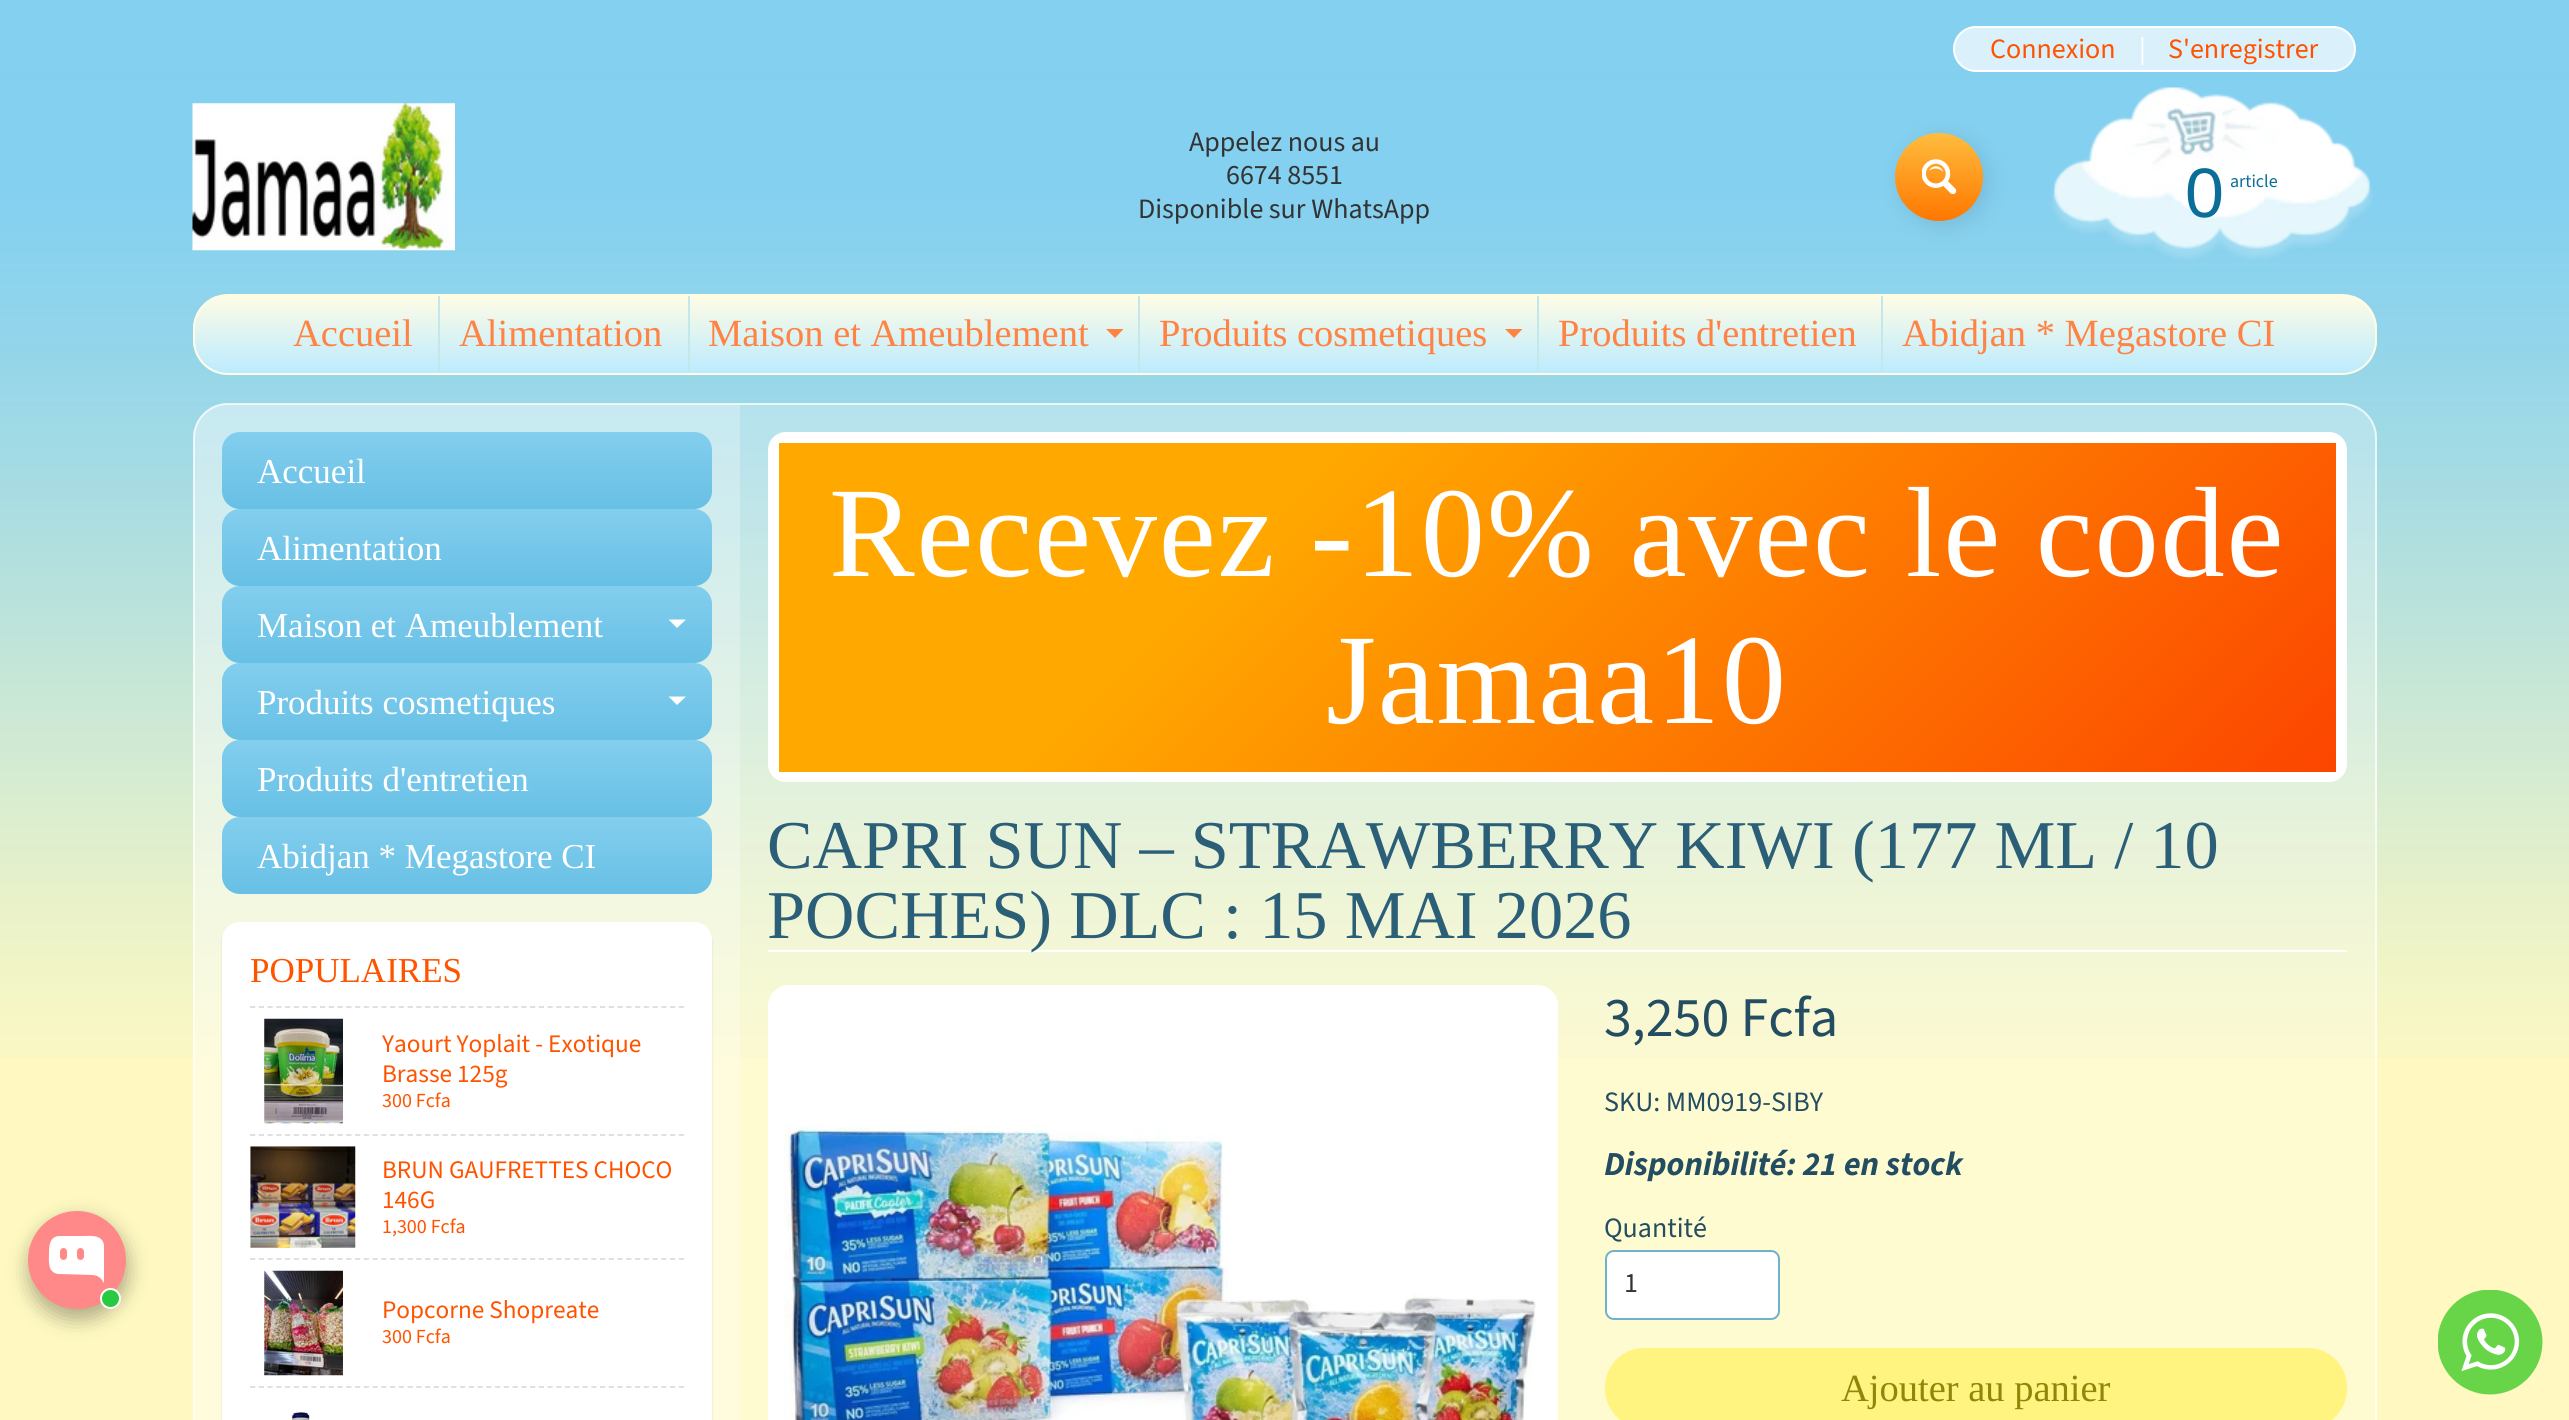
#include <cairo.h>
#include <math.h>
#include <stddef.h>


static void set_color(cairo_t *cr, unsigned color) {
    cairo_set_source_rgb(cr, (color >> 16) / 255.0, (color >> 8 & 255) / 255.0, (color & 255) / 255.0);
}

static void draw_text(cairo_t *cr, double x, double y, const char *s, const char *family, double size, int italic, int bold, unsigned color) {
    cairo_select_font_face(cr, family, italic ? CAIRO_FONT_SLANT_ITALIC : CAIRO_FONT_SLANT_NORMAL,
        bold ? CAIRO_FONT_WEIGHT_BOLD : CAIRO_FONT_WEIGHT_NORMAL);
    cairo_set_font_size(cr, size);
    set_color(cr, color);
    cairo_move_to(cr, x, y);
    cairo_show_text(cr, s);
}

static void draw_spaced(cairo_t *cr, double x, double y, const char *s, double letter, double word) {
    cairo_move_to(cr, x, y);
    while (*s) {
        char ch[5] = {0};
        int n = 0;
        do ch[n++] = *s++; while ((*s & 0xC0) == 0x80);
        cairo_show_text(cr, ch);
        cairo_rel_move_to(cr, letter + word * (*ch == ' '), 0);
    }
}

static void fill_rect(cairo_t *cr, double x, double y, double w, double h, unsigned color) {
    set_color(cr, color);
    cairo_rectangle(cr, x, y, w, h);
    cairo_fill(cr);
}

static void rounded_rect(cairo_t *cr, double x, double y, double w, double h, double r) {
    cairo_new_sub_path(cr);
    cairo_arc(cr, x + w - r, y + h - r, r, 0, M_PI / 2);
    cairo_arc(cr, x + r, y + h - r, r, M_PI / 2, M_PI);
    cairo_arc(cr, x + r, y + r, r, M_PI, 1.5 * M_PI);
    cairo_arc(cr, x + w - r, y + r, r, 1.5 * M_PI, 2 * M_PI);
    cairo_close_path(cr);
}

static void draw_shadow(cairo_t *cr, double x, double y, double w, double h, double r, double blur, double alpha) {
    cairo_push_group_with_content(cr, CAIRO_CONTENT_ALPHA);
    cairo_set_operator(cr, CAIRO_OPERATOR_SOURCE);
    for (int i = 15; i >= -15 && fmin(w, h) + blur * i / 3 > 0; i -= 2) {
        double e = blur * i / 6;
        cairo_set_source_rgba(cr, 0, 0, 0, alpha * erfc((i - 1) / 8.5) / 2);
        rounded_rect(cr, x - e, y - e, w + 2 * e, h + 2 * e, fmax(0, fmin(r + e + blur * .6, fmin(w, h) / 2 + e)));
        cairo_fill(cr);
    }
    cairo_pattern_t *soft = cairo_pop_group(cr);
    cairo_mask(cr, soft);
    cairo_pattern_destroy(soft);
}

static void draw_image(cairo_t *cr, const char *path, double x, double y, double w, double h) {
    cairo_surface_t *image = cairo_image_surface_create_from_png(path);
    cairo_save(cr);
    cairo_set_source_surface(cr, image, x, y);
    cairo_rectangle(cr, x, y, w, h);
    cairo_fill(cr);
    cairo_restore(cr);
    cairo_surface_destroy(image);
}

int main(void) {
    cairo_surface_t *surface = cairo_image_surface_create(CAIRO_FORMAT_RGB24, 2569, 1420);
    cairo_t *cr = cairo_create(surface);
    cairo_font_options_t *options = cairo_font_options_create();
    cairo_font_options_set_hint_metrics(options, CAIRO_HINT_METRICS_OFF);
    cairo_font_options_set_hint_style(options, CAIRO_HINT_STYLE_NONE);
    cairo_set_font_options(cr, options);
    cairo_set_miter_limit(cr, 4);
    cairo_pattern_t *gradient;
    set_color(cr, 0xFFF9C1);
    cairo_paint(cr);
    draw_image(cr, "assets/img1.png", 0, 0, 2569, 1058);
    set_color(cr, 0x000000);
    draw_shadow(cr, 33, 1216, 98, 98, 49, 10.5, 0.1);
    draw_shadow(cr, 28, 1222, 98, 98, 49, 10.5, 0.25);
    set_color(cr, 0xFF8988);
    cairo_arc(cr, 77, 1260, 49, 0, 2 * M_PI);
    cairo_fill(cr);
    set_color(cr, 0xFFFFFF);
    cairo_set_fill_rule(cr, CAIRO_FILL_RULE_EVEN_ODD);
    cairo_new_path(cr);
    cairo_move_to(cr, 60, 1236);
    cairo_curve_to(cr, 50, 1236, 49, 1245, 49, 1252);
    cairo_curve_to(cr, 49, 1261, 47, 1272, 58, 1274);
    cairo_line_to(cr, 92, 1275);
    cairo_curve_to(cr, 96, 1275, 100, 1277, 102, 1280);
    cairo_line_to(cr, 104, 1283);
    cairo_line_to(cr, 104, 1245);
    cairo_curve_to(cr, 102, 1234, 90, 1236, 82, 1236);
    cairo_close_path(cr);
    cairo_fill(cr);
    set_color(cr, 0xFF8988);
    rounded_rect(cr, 60, 1248, 7, 12, 3.5);
    cairo_fill(cr);
    rounded_rect(cr, 77, 1248, 7, 12, 3.5);
    cairo_fill(cr);
    set_color(cr, 0x27CA40);
    cairo_arc(cr, 110.5, 1298.5, 9.5, 0, 2 * M_PI);
    cairo_fill_preserve(cr);
    set_color(cr, 0xFFFFFF);
    cairo_stroke(cr);
    draw_image(cr, "assets/img2.png", 192, 103, 263, 148);
    draw_text(cr, 1189, 151, "Appelez nous au", "Source Sans Pro", 28, 0, 0, 0x333333);
    draw_text(cr, 1226, 184, "6674 8551", "Source Sans Pro", 28, 0, 0, 0x333333);
    draw_text(cr, 1138, 218, "Disponible sur WhatsApp", "Source Sans Pro", 28, 0, 0, 0x333333);
    set_color(cr, 0xDAF1FB);
    rounded_rect(cr, 1954, 27, 401, 44, 22);
    cairo_fill_preserve(cr);
    set_color(cr, 0xFFFFFF);
    cairo_stroke(cr);
    draw_text(cr, 1990, 58, "Connexion", "Source Sans Pro", 28, 0, 0, 0xFF5300);
    draw_text(cr, 2139, 58, "|", "Source Sans Pro", 28, 0, 0, 0xFFFFFF);
    draw_text(cr, 2168, 58, "S'enregistrer", "Source Sans Pro", 28, 0, 0, 0xFF5300);
    set_color(cr, 0x000000);
    draw_shadow(cr, 1901, 138, 87, 88, 43.5, 10.5, 0.1);
    gradient = cairo_pattern_create_linear(1939, 133, 1939, 221);
    cairo_pattern_add_color_stop_rgba(gradient, 0, 1, 0.741, 0.243, 1);
    cairo_pattern_add_color_stop_rgba(gradient, 1, 1, 0.467, 0, 1);
    cairo_set_source(cr, gradient);
    cairo_pattern_destroy(gradient);
    cairo_arc(cr, 1939, 177, 44, 0, 2 * M_PI);
    cairo_fill(cr);
    draw_image(cr, "assets/img3.png", 1922, 159, 35, 35);
    draw_image(cr, "assets/img4.png", 2051, 87, 322, 173);
    draw_text(cr, 2185, 217, "0", "Liberation Sans", 70, 0, 0, 0x0A6E99);
    draw_text(cr, 2230, 187, "article", "Source Sans Pro", 18, 0, 0, 0x0A6E99);
    cairo_save(cr);
    cairo_set_fill_rule(cr, CAIRO_FILL_RULE_WINDING);
    rounded_rect(cr, 193, 294, 2184, 81, 35);
    cairo_clip(cr);
    gradient = cairo_pattern_create_linear(1285, 296, 1285, 373);
    cairo_pattern_add_color_stop_rgba(gradient, 0, 1, 0.988, 0.898, 1);
    cairo_pattern_add_color_stop_rgba(gradient, 1, 0.737, 0.922, 1, 1);
    cairo_set_source(cr, gradient);
    cairo_pattern_destroy(gradient);
    cairo_rectangle(cr, 193, 296, 2184, 77);
    cairo_fill(cr);
    cairo_restore(cr);
    rounded_rect(cr, 194, 295, 2182, 79, 34);
    set_color(cr, 0xFFFCE5);
    cairo_stroke(cr);
    draw_text(cr, 293, 346, "Accueil", "Liberation Serif", 38.5, 0, 0, 0xFE8345);
    fill_rect(cr, 438, 296, 2, 77, 0xC3E7EA);
    draw_text(cr, 459, 346, "Alimentation", "Liberation Serif", 38.5, 0, 0, 0xFE8345);
    fill_rect(cr, 688, 296, 2, 77, 0xC3E7EA);
    draw_text(cr, 708, 346, "Maison et Ameublement", "Liberation Serif", 38.5, 0, 0, 0xFE8345);
    cairo_set_fill_rule(cr, CAIRO_FILL_RULE_WINDING);
    cairo_new_path(cr);
    cairo_move_to(cr, 1106, 329);
    cairo_line_to(cr, 1123.5, 329);
    cairo_line_to(cr, 1115, 338);
    cairo_close_path(cr);
    cairo_fill(cr);
    fill_rect(cr, 1138, 296, 2, 77, 0xC3E7EA);
    draw_text(cr, 1159, 346, "Produits cosmetiques", "Liberation Serif", 38.5, 0, 0, 0xFE8345);
    cairo_new_path(cr);
    cairo_move_to(cr, 1505, 329);
    cairo_line_to(cr, 1522.5, 329);
    cairo_line_to(cr, 1514, 338);
    cairo_close_path(cr);
    cairo_fill(cr);
    fill_rect(cr, 1537, 296, 2, 77, 0xC3E7EA);
    draw_text(cr, 1558, 346, "Produits d'entretien", "Liberation Serif", 38.5, 0, 0, 0xFE8345);
    fill_rect(cr, 1881, 296, 2, 77, 0xC3E7EA);
    draw_text(cr, 1902, 346, "Abidjan * Megastore CI", "Liberation Serif", 38.5, 0, 0, 0xFE8345);
    cairo_set_source_rgba(cr, 1, 1, 1, 0.25);
    rounded_rect(cr, 193, 403, 2184, 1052, 35);
    cairo_fill(cr);
    rounded_rect(cr, 194, 404, 2182, 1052, 34);
    cairo_set_source_rgba(cr, 1, 1, 1, 0.7);
    cairo_stroke(cr);
    cairo_set_source_rgba(cr, 1, 1, 1, 0.25);
    cairo_new_path(cr);
    cairo_move_to(cr, 227, 404);
    cairo_line_to(cr, 740, 404);
    cairo_line_to(cr, 740, 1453);
    cairo_line_to(cr, 227, 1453);
    cairo_curve_to(cr, 209, 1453, 194, 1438, 194, 1420);
    cairo_line_to(cr, 194, 437);
    cairo_curve_to(cr, 194, 419, 209, 404, 227, 404);
    cairo_close_path(cr);
    cairo_fill(cr);
    gradient = cairo_pattern_create_linear(467, 432, 467, 509);
    cairo_pattern_add_color_stop_rgba(gradient, 0, 0.514, 0.808, 0.933, 1);
    cairo_pattern_add_color_stop_rgba(gradient, 1, 0.404, 0.753, 0.898, 1);
    cairo_set_source(cr, gradient);
    cairo_pattern_destroy(gradient);
    rounded_rect(cr, 222, 432, 490, 77, 18);
    cairo_fill(cr);
    draw_text(cr, 257, 483, "Accueil", "Liberation Serif", 35, 0, 0, 0xFFFFFF);
    gradient = cairo_pattern_create_linear(467, 509, 467, 586);
    cairo_pattern_add_color_stop_rgba(gradient, 0, 0.514, 0.808, 0.933, 1);
    cairo_pattern_add_color_stop_rgba(gradient, 1, 0.404, 0.753, 0.898, 1);
    cairo_set_source(cr, gradient);
    cairo_pattern_destroy(gradient);
    rounded_rect(cr, 222, 509, 490, 77, 18);
    cairo_fill(cr);
    draw_text(cr, 257, 560, "Alimentation", "Liberation Serif", 35, 0, 0, 0xFFFFFF);
    gradient = cairo_pattern_create_linear(467, 586, 467, 663);
    cairo_pattern_add_color_stop_rgba(gradient, 0, 0.514, 0.808, 0.933, 1);
    cairo_pattern_add_color_stop_rgba(gradient, 1, 0.404, 0.753, 0.898, 1);
    cairo_set_source(cr, gradient);
    cairo_pattern_destroy(gradient);
    rounded_rect(cr, 222, 586, 490, 77, 18);
    cairo_fill(cr);
    draw_text(cr, 257, 637, "Maison et Ameublement", "Liberation Serif", 35, 0, 0, 0xFFFFFF);
    cairo_new_path(cr);
    cairo_move_to(cr, 668.5, 619.5);
    cairo_line_to(cr, 686, 619.5);
    cairo_line_to(cr, 677, 628);
    cairo_close_path(cr);
    cairo_fill(cr);
    gradient = cairo_pattern_create_linear(467, 663, 467, 740);
    cairo_pattern_add_color_stop_rgba(gradient, 0, 0.514, 0.808, 0.933, 1);
    cairo_pattern_add_color_stop_rgba(gradient, 1, 0.404, 0.753, 0.898, 1);
    cairo_set_source(cr, gradient);
    cairo_pattern_destroy(gradient);
    rounded_rect(cr, 222, 663, 490, 77, 18);
    cairo_fill(cr);
    draw_text(cr, 257, 714, "Produits cosmetiques", "Liberation Serif", 35, 0, 0, 0xFFFFFF);
    cairo_new_path(cr);
    cairo_move_to(cr, 668.5, 696.5);
    cairo_line_to(cr, 686, 696.5);
    cairo_line_to(cr, 677, 705);
    cairo_close_path(cr);
    cairo_fill(cr);
    gradient = cairo_pattern_create_linear(467, 740, 467, 817);
    cairo_pattern_add_color_stop_rgba(gradient, 0, 0.514, 0.808, 0.933, 1);
    cairo_pattern_add_color_stop_rgba(gradient, 1, 0.404, 0.753, 0.898, 1);
    cairo_set_source(cr, gradient);
    cairo_pattern_destroy(gradient);
    rounded_rect(cr, 222, 740, 490, 77, 18);
    cairo_fill(cr);
    draw_text(cr, 257, 791, "Produits d'entretien", "Liberation Serif", 35, 0, 0, 0xFFFFFF);
    gradient = cairo_pattern_create_linear(467, 817, 467, 894);
    cairo_pattern_add_color_stop_rgba(gradient, 0, 0.514, 0.808, 0.933, 1);
    cairo_pattern_add_color_stop_rgba(gradient, 1, 0.404, 0.753, 0.898, 1);
    cairo_set_source(cr, gradient);
    cairo_pattern_destroy(gradient);
    rounded_rect(cr, 222, 817, 490, 77, 18);
    cairo_fill(cr);
    draw_text(cr, 257, 868, "Abidjan * Megastore CI", "Liberation Serif", 35, 0, 0, 0xFFFFFF);
    set_color(cr, 0x000000);
    draw_shadow(cr, 222, 924, 490, 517, 18, 1, 0.1);
    set_color(cr, 0xFFFFFF);
    rounded_rect(cr, 222, 922, 490, 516, 18);
    cairo_fill(cr);
    draw_text(cr, 250, 982, "POPULAIRES", "Liberation Serif", 35, 0, 0, 0xFF5300);
    cairo_new_path(cr);
    cairo_move_to(cr, 250, 1007);
    cairo_line_to(cr, 684, 1007);
    set_color(cr, 0xDDDDDD);
    cairo_set_line_width(cr, 1.8);
    cairo_set_dash(cr, (double[]){5.25, 3.5}, 2, 0);
    cairo_stroke(cr);
    draw_image(cr, "assets/img5.png", 264, 1018, 79, 106);
    draw_text(cr, 382, 1052, "Yaourt Yoplait - Exotique", "Source Sans Pro", 25.25, 0, 0, 0xFF5300);
    draw_text(cr, 382, 1082, "Brasse 125g", "Source Sans Pro", 25.25, 0, 0, 0xFF5300);
    draw_text(cr, 382, 1107, "300 Fcfa", "Source Sans Pro", 20, 0, 0, 0xFF5300);
    cairo_new_path(cr);
    cairo_move_to(cr, 250, 1135);
    cairo_line_to(cr, 684, 1135);
    set_color(cr, 0xDDDDDD);
    cairo_stroke(cr);
    draw_image(cr, "assets/img6.png", 250, 1146, 106, 102);
    draw_text(cr, 382, 1178, "BRUN GAUFRETTES CHOCO", "Source Sans Pro", 25.25, 0, 0, 0xFF5300);
    draw_text(cr, 382, 1208, "146G", "Source Sans Pro", 25.25, 0, 0, 0xFF5300);
    draw_text(cr, 382, 1233, "1,300 Fcfa", "Source Sans Pro", 20, 0, 0, 0xFF5300);
    cairo_new_path(cr);
    cairo_move_to(cr, 250, 1259);
    cairo_line_to(cr, 684, 1259);
    set_color(cr, 0xDDDDDD);
    cairo_stroke(cr);
    draw_image(cr, "assets/img7.png", 264, 1270, 79, 106);
    draw_text(cr, 382, 1318, "Popcorne Shopreate", "Source Sans Pro", 25.25, 0, 0, 0xFF5300);
    draw_text(cr, 382, 1343, "300 Fcfa", "Source Sans Pro", 20, 0, 0, 0xFF5300);
    cairo_new_path(cr);
    cairo_move_to(cr, 250, 1387);
    cairo_line_to(cr, 684, 1387);
    set_color(cr, 0xDDDDDD);
    cairo_stroke(cr);
    draw_image(cr, "assets/img8.png", 291, 1411, 19, 9);
    set_color(cr, 0xFFFFFF);
    rounded_rect(cr, 768, 432, 1579, 350, 18);
    cairo_fill(cr);
    gradient = cairo_pattern_create_linear(1086, 136, 2029, 1079);
    cairo_pattern_add_color_stop_rgba(gradient, 0.3, 1, 0.659, 0, 1);
    cairo_pattern_add_color_stop_rgba(gradient, 1, 0.988, 0.271, 0, 1);
    cairo_set_source(cr, gradient);
    cairo_pattern_destroy(gradient);
    cairo_rectangle(cr, 779, 443, 1557, 329);
    cairo_fill(cr);
    cairo_select_font_face(cr, "Liberation Serif", CAIRO_FONT_SLANT_NORMAL, CAIRO_FONT_WEIGHT_NORMAL);
    cairo_set_font_size(cr, 128.5);
    set_color(cr, 0xFFFFFF);
    draw_spaced(cr, 829, 576, "Recevez -10% avec le code", 1.75, 0);
    draw_spaced(cr, 1326, 723, "Jamaa10", 1.75, 0);
    fill_rect(cr, 768, 950, 1579, 2, 0xFFFFFF);
    draw_text(cr, 767, 868, "CAPRI SUN – STRAWBERRY KIWI (177 ML / 10", "Liberation Serif", 68.4, 0, 0, 0x2B5F77);
    draw_text(cr, 767, 938, "POCHES) DLC : 15 MAI 2026", "Liberation Serif", 68.4, 0, 0, 0x2B5F77);
    set_color(cr, 0xFFFFFF);
    rounded_rect(cr, 768, 985, 790, 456, 21);
    cairo_fill(cr);
    draw_image(cr, "assets/img9.png", 784, 1125, 752, 295);
    draw_text(cr, 1604, 1036, "3,250 Fcfa", "Source Sans Pro", 56, 0, 0, 0x234D61);
    draw_text(cr, 1604, 1111, "SKU: MM0919-SIBY", "Source Sans Pro", 28, 0, 0, 0x234D61);
    draw_text(cr, 1604, 1175, "Disponibilité: 21 en stock", "Source Sans Pro", 33.6, 1, 1, 0x234D61);
    draw_text(cr, 1604, 1237, "Quantité", "Source Sans Pro", 28, 0, 0, 0x234D61);
    set_color(cr, 0xFFFFFF);
    rounded_rect(cr, 1606, 1251, 173, 68, 8);
    cairo_fill_preserve(cr);
    set_color(cr, 0x70B1CC);
    cairo_set_line_width(cr, 2);
    cairo_set_dash(cr, NULL, 0, 0);
    cairo_stroke(cr);
    draw_text(cr, 1624, 1292, "1", "Source Sans Pro", 28, 0, 0, 0x333333);
    set_color(cr, 0xFFF480);
    rounded_rect(cr, 1605, 1348, 742, 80, 39);
    cairo_fill(cr);
    draw_text(cr, 1841, 1401, "Ajouter au panier", "Liberation Serif", 38.5, 0, 0, 0x918608);
    draw_image(cr, "assets/img10.png", 2438, 1290, 105, 105);
    cairo_surface_write_to_png(surface, "output.png");
    cairo_font_options_destroy(options);
    cairo_destroy(cr);
    cairo_surface_destroy(surface);
    return 0;
}
